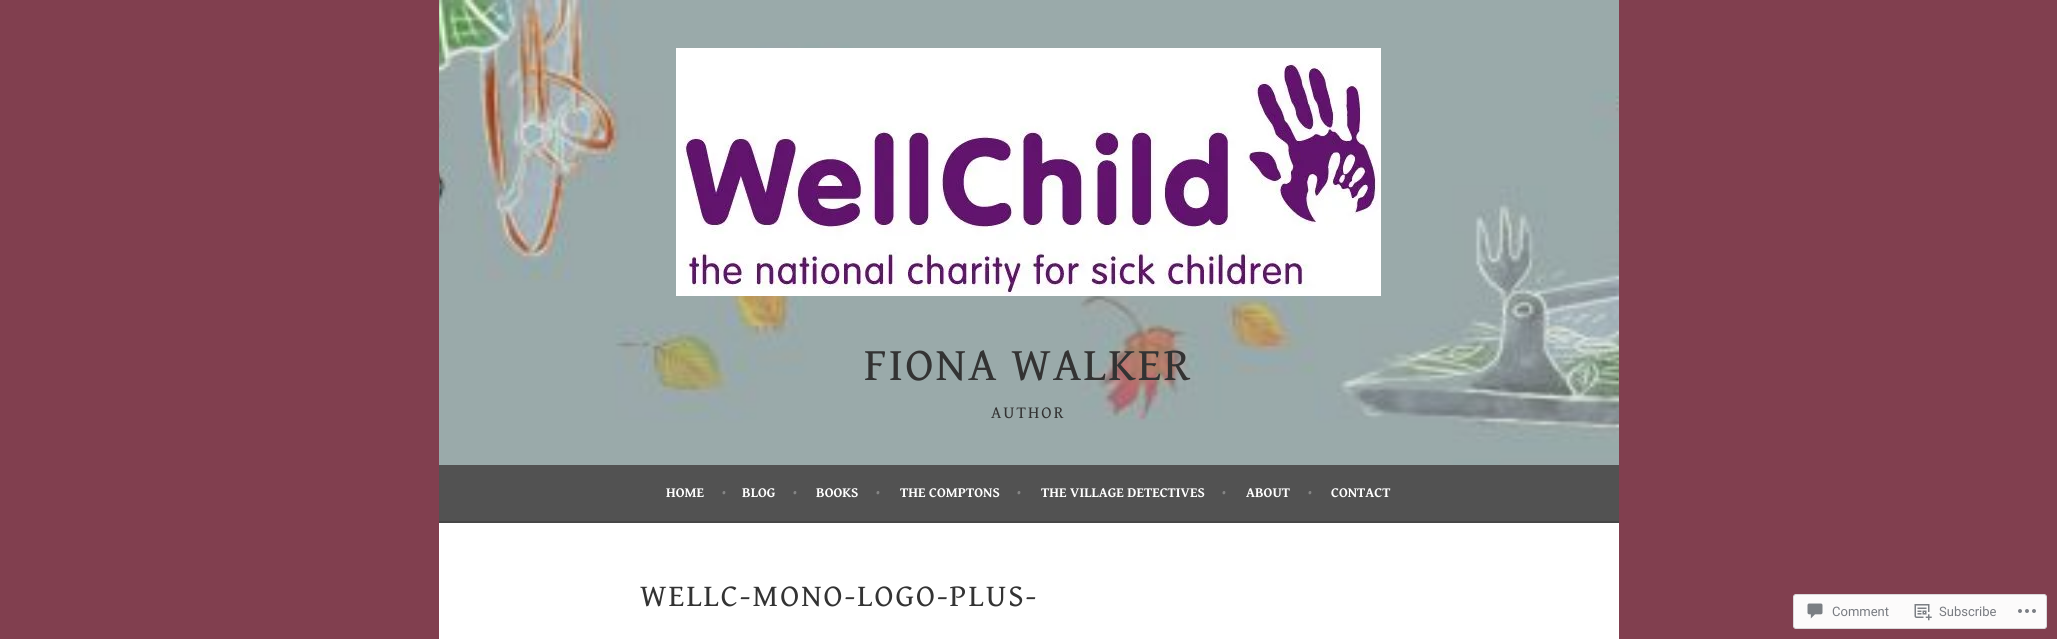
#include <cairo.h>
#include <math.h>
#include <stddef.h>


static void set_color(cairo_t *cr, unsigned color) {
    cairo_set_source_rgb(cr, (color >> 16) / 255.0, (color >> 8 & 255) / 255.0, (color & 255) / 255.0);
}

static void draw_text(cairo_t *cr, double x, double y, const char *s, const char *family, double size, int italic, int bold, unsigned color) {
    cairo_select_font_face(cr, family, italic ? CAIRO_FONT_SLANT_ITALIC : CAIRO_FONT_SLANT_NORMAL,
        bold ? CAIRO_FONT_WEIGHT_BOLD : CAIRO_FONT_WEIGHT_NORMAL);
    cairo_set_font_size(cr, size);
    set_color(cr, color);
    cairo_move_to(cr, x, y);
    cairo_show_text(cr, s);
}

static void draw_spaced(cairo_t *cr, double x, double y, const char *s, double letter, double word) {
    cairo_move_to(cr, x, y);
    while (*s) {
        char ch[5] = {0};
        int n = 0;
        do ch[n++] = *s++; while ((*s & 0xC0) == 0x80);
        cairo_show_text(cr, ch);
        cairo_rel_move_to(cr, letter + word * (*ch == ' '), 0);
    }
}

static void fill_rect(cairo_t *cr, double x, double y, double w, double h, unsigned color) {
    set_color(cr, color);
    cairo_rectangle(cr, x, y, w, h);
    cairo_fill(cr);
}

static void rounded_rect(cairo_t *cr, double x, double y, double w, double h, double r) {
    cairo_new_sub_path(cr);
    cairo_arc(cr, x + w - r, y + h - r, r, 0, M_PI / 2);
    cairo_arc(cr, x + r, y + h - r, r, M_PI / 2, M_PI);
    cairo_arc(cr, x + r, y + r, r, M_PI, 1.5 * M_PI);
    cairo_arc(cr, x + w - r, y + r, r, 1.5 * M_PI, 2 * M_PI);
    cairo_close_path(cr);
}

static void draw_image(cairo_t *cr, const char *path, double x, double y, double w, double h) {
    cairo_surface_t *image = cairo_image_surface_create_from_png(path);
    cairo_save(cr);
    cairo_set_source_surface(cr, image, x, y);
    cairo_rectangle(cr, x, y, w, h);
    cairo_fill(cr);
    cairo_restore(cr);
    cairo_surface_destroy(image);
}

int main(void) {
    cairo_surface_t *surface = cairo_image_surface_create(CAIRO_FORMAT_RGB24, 2057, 639);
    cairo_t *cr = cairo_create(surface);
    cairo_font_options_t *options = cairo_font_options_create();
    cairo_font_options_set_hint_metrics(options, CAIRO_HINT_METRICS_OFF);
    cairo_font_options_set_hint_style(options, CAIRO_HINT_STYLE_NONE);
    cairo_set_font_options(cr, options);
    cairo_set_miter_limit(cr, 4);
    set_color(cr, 0x813F4F);
    cairo_paint(cr);
    draw_image(cr, "assets/img1.png", 439, 0, 1180, 465);
    draw_image(cr, "assets/img2.png", 676, 48, 705, 248);
    cairo_select_font_face(cr, "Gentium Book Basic", CAIRO_FONT_SLANT_NORMAL, CAIRO_FONT_WEIGHT_NORMAL);
    cairo_set_font_size(cr, 46.75);
    set_color(cr, 0x333333);
    draw_spaced(cr, 864, 380, "FIONA WALKER", 2, 0);
    cairo_set_font_size(cr, 17);
    draw_spaced(cr, 991, 418, "AUTHOR", 2, 0);
    fill_rect(cr, 439, 465, 1180, 56, 0x525252);
    fill_rect(cr, 439, 521, 1180, 2, 0x464646);
    draw_text(cr, 666, 497, "HOME", "Gentium Book Basic", 14, 0, 1, 0xFFFFFF);
    draw_text(cr, 722, 497, "•", "Gentium Book Basic", 14, 0, 1, 0x848484);
    draw_text(cr, 742, 497, "BLOG", "Gentium Book Basic", 14, 0, 1, 0xFFFFFF);
    draw_text(cr, 793, 497, "•", "Gentium Book Basic", 14, 0, 1, 0x848484);
    draw_text(cr, 816, 497, "BOOKS", "Gentium Book Basic", 14, 0, 1, 0xFFFFFF);
    draw_text(cr, 876, 497, "•", "Gentium Book Basic", 14, 0, 1, 0x848484);
    draw_text(cr, 900, 497, "THE COMPTONS", "Gentium Book Basic", 14, 0, 1, 0xFFFFFF);
    draw_text(cr, 1017, 497, "•", "Gentium Book Basic", 14, 0, 1, 0x848484);
    draw_text(cr, 1041, 497, "THE VILLAGE DETECTIVES", "Gentium Book Basic", 14, 0, 1, 0xFFFFFF);
    draw_text(cr, 1222, 497, "•", "Gentium Book Basic", 14, 0, 1, 0x848484);
    draw_text(cr, 1246, 497, "ABOUT", "Gentium Book Basic", 14, 0, 1, 0xFFFFFF);
    draw_text(cr, 1308, 497, "•", "Gentium Book Basic", 14, 0, 1, 0x848484);
    draw_text(cr, 1331, 497, "CONTACT", "Gentium Book Basic", 14, 0, 1, 0xFFFFFF);
    fill_rect(cr, 439, 523, 1180, 116, 0xFFFFFF);
    cairo_select_font_face(cr, "Gentium Book Basic", CAIRO_FONT_SLANT_NORMAL, CAIRO_FONT_WEIGHT_NORMAL);
    cairo_set_font_size(cr, 31.25);
    set_color(cr, 0x333333);
    draw_spaced(cr, 640, 606, "WELLC-MONO-LOGO-PLUS-", 2, 0);
    set_color(cr, 0xFCFBFB);
    rounded_rect(cr, 1793.5, 594.5, 253, 34, 2.5);
    cairo_fill_preserve(cr);
    set_color(cr, 0xDAD9DB);
    cairo_set_line_width(cr, 1);
    cairo_stroke(cr);
    draw_image(cr, "assets/img3.png", 1807, 603, 16, 16);
    draw_text(cr, 1832, 616, "Comment", "Roboto", 13, 0, 0, 0x787B81);
    draw_image(cr, "assets/img4.png", 1914, 604, 18, 17);
    draw_text(cr, 1939, 616, "Subscribe", "Roboto", 13, 0, 0, 0x787B81);
    draw_image(cr, "assets/img5.png", 2018, 609, 18, 4);
    cairo_surface_write_to_png(surface, "output.png");
    cairo_font_options_destroy(options);
    cairo_destroy(cr);
    cairo_surface_destroy(surface);
    return 0;
}
